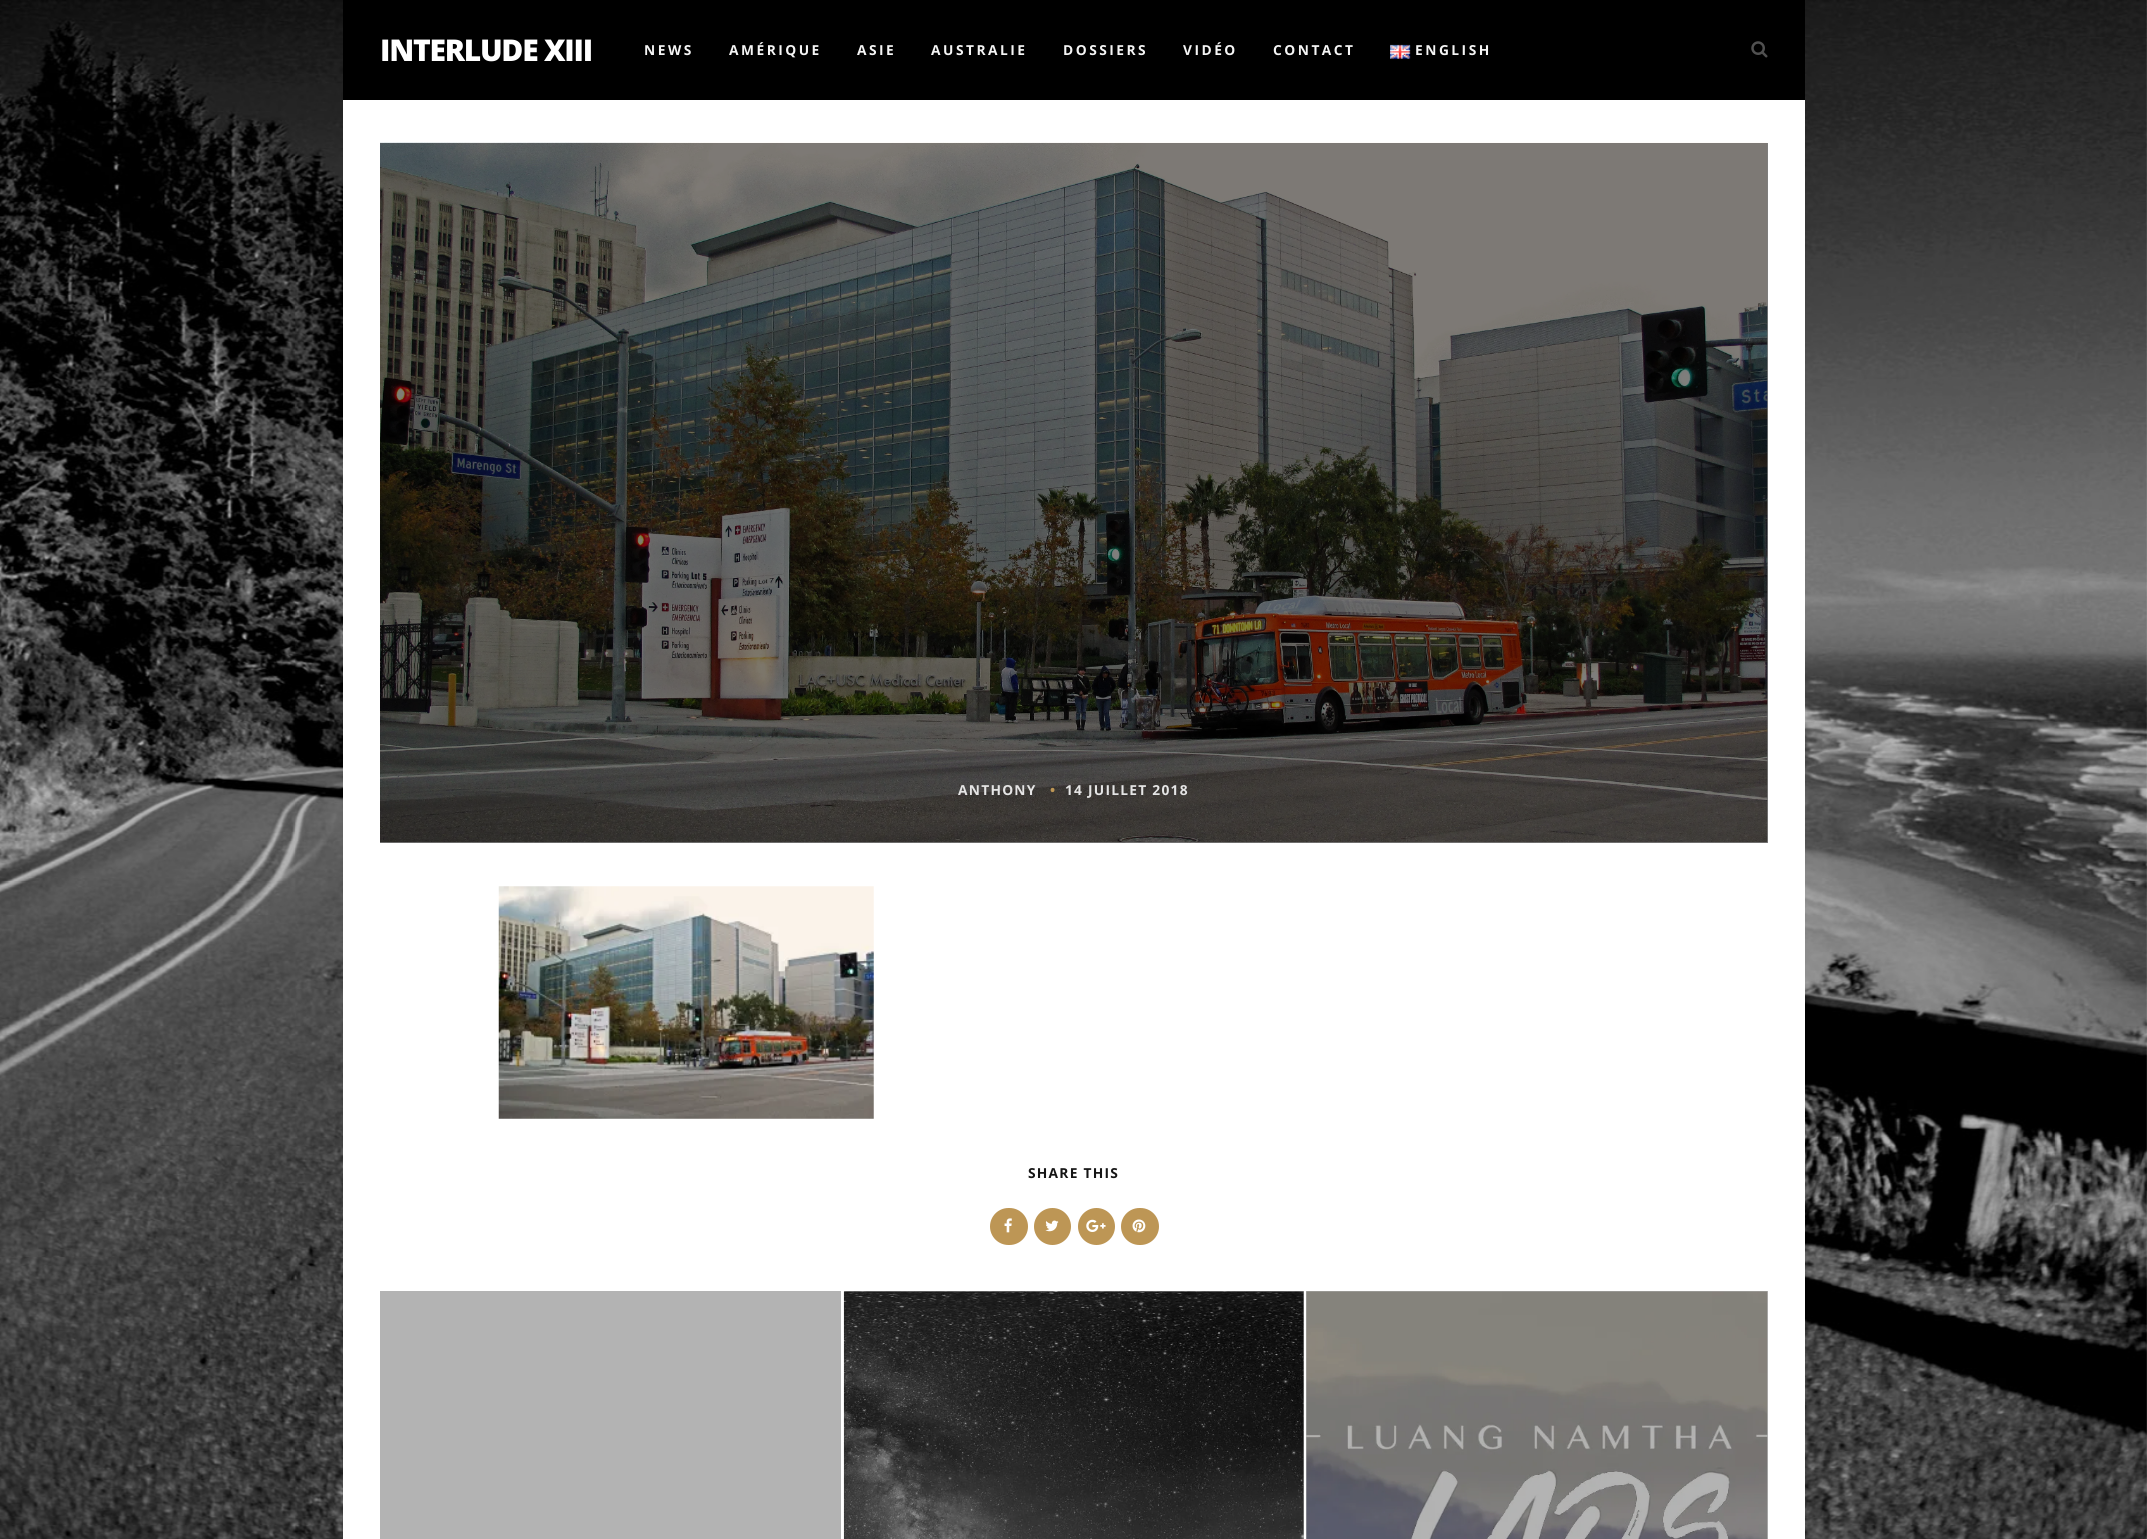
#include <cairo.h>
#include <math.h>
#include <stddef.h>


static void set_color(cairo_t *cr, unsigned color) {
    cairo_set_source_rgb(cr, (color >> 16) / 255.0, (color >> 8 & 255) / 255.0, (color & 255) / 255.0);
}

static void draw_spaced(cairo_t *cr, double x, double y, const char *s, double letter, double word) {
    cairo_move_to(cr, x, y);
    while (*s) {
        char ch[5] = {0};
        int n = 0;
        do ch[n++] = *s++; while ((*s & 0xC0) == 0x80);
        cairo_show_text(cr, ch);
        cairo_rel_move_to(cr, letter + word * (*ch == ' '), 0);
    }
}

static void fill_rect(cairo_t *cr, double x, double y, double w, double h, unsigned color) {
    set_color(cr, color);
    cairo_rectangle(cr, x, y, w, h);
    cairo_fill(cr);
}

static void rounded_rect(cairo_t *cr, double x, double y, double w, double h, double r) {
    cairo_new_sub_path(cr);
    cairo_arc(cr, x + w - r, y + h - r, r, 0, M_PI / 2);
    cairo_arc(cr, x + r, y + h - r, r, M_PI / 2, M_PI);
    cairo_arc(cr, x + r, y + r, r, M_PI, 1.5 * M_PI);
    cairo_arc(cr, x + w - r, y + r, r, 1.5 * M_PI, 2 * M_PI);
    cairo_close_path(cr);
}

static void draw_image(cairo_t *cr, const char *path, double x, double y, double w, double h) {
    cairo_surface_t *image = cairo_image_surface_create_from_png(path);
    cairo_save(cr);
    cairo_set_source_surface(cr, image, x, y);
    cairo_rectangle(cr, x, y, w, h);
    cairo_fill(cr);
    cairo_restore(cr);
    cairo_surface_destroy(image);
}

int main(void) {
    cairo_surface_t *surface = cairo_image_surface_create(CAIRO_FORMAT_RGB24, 2147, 1539);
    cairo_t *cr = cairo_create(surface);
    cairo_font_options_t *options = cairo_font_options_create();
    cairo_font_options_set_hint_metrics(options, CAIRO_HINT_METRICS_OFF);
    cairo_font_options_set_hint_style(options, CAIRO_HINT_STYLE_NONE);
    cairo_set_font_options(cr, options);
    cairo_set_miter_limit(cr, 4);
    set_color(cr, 0xFFFFFF);
    cairo_paint(cr);
    draw_image(cr, "assets/img1.png", 0, 0, 2147, 1539);
    fill_rect(cr, 343, 0, 1462, 100, 0x000000);
    cairo_select_font_face(cr, "Open Sans ExtraBold", CAIRO_FONT_SLANT_NORMAL, CAIRO_FONT_WEIGHT_NORMAL);
    cairo_set_font_size(cr, 30);
    set_color(cr, 0xFFFFFF);
    draw_spaced(cr, 380, 61, "INTERLUDE XIII", -1.25, 0);
    cairo_select_font_face(cr, "Open Sans", CAIRO_FONT_SLANT_NORMAL, CAIRO_FONT_WEIGHT_BOLD);
    cairo_set_font_size(cr, 13.75);
    set_color(cr, 0xF5F5F5);
    draw_spaced(cr, 644, 55, "NEWS", 2.5, 0);
    draw_spaced(cr, 729, 55, "AMÉRIQUE", 2.5, 0);
    draw_spaced(cr, 857, 55, "ASIE", 2.5, 0);
    draw_spaced(cr, 931, 55, "AUSTRALIE", 2.5, 0);
    draw_spaced(cr, 1063, 55, "DOSSIERS", 2.5, 0);
    draw_spaced(cr, 1183, 55, "VIDÉO", 2.5, 0);
    draw_spaced(cr, 1273, 55, "CONTACT", 2.5, 0);
    draw_image(cr, "assets/img2.png", 1390, 44, 21, 15);
    draw_spaced(cr, 1415, 55, "ENGLISH", 2.5, 0);
    draw_image(cr, "assets/img3.png", 1751, 41, 17, 17);
    fill_rect(cr, 343, 100, 1462, 1439, 0xFFFFFF);
    draw_image(cr, "assets/img4.png", 380, 142, 1388, 701);
    cairo_set_source_rgba(cr, 0, 0, 0, 0.5);
    cairo_rectangle(cr, 380, 143, 1388, 700);
    cairo_fill(cr);
    set_color(cr, 0xE5E5E5);
    draw_spaced(cr, 958, 795, "ANTHONY", 1.25, 0);
    set_color(cr, 0xBD9655);
    draw_spaced(cr, 1050, 795, "•", 1.25, 0);
    set_color(cr, 0xE5E5E5);
    draw_spaced(cr, 1065, 795, "14 JUILLET 2018", 1.25, 0);
    draw_image(cr, "assets/img5.png", 498, 886, 376, 233);
    set_color(cr, 0x151515);
    draw_spaced(cr, 1028, 1178, "SHARE THIS", 1.25, 0);
    set_color(cr, 0xBD9655);
    rounded_rect(cr, 990, 1208, 38, 37, 18.5);
    cairo_fill(cr);
    draw_image(cr, "assets/img6.png", 1004, 1218, 8, 15);
    cairo_arc(cr, 1052.5, 1226.5, 18.5, 0, 2 * M_PI);
    cairo_fill(cr);
    draw_image(cr, "assets/img7.png", 1045, 1220, 14, 12);
    cairo_arc(cr, 1096.5, 1226.5, 18.5, 0, 2 * M_PI);
    cairo_fill(cr);
    draw_image(cr, "assets/img8.png", 1086, 1219, 20, 13);
    rounded_rect(cr, 1121, 1208, 38, 37, 18.5);
    cairo_fill(cr);
    draw_image(cr, "assets/img9.png", 1132, 1219, 14, 14);
    fill_rect(cr, 380, 1291, 461, 248, 0xB3B3B3);
    draw_image(cr, "assets/img10.png", 843, 1291, 461, 248);
    cairo_set_source_rgba(cr, 0, 0, 0, 0.3);
    cairo_rectangle(cr, 844, 1291, 460, 248);
    cairo_fill(cr);
    draw_image(cr, "assets/img11.png", 1306, 1291, 462, 248);
    cairo_rectangle(cr, 1306, 1291, 462, 248);
    cairo_fill(cr);
    cairo_surface_write_to_png(surface, "output.png");
    cairo_font_options_destroy(options);
    cairo_destroy(cr);
    cairo_surface_destroy(surface);
    return 0;
}
